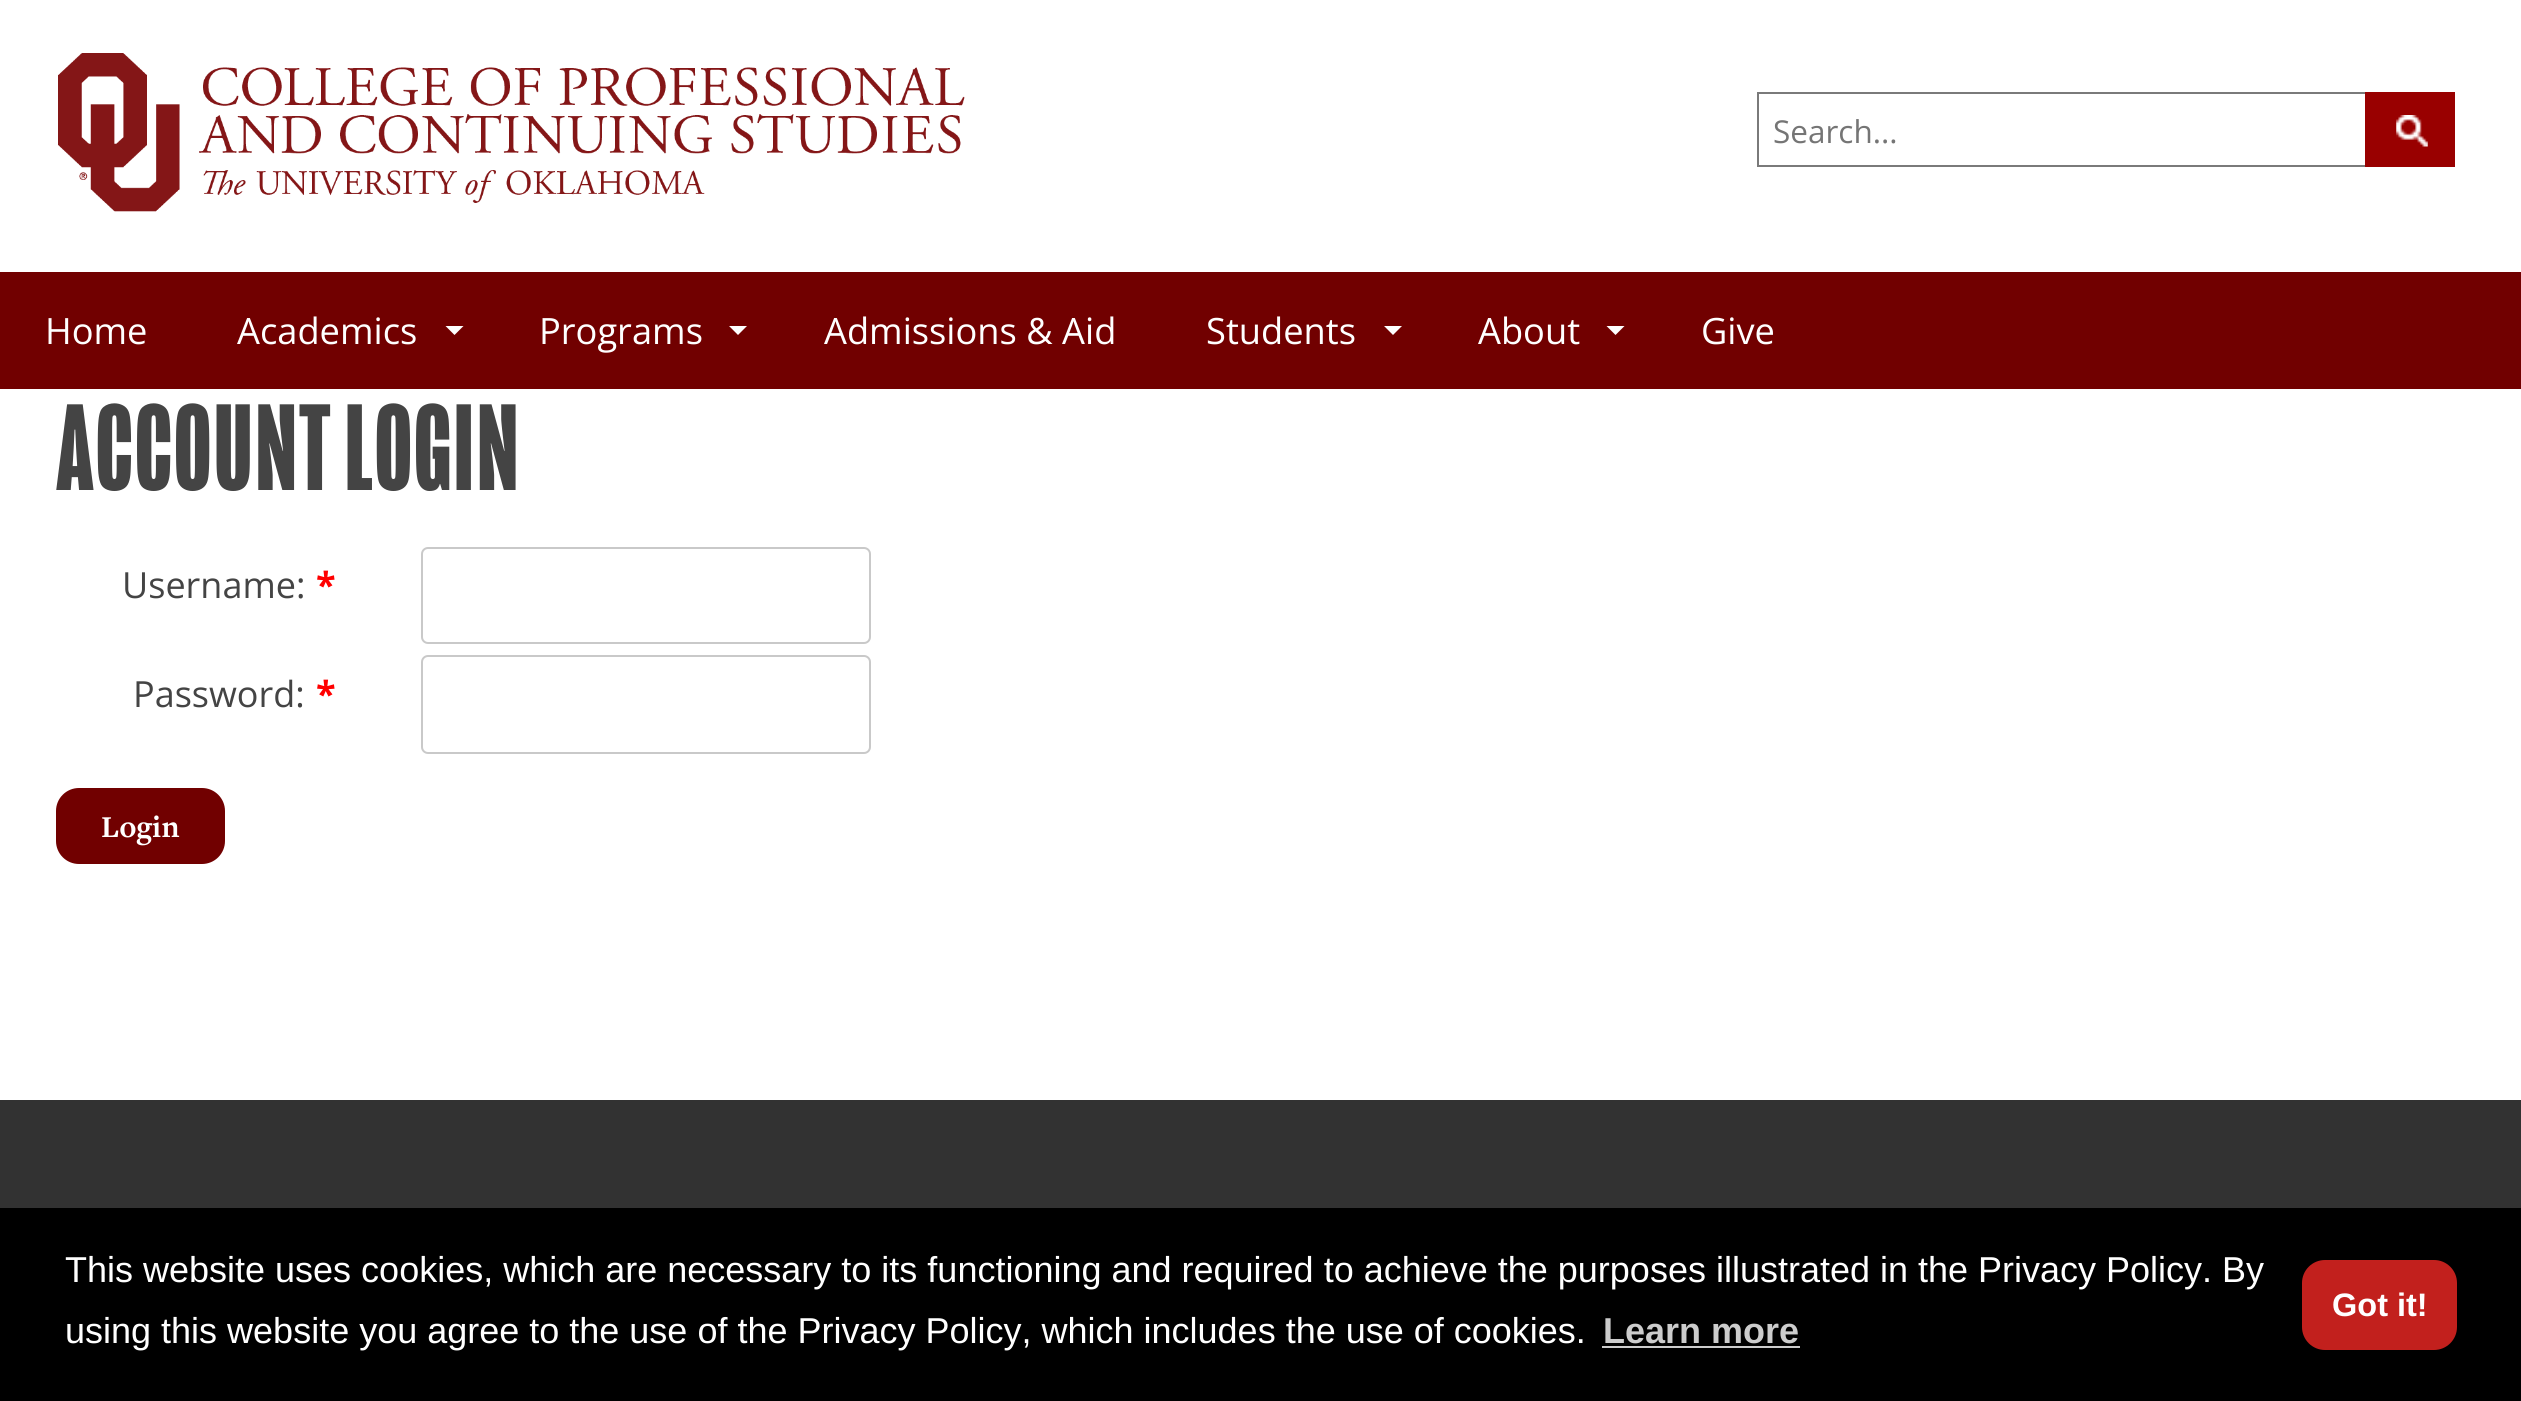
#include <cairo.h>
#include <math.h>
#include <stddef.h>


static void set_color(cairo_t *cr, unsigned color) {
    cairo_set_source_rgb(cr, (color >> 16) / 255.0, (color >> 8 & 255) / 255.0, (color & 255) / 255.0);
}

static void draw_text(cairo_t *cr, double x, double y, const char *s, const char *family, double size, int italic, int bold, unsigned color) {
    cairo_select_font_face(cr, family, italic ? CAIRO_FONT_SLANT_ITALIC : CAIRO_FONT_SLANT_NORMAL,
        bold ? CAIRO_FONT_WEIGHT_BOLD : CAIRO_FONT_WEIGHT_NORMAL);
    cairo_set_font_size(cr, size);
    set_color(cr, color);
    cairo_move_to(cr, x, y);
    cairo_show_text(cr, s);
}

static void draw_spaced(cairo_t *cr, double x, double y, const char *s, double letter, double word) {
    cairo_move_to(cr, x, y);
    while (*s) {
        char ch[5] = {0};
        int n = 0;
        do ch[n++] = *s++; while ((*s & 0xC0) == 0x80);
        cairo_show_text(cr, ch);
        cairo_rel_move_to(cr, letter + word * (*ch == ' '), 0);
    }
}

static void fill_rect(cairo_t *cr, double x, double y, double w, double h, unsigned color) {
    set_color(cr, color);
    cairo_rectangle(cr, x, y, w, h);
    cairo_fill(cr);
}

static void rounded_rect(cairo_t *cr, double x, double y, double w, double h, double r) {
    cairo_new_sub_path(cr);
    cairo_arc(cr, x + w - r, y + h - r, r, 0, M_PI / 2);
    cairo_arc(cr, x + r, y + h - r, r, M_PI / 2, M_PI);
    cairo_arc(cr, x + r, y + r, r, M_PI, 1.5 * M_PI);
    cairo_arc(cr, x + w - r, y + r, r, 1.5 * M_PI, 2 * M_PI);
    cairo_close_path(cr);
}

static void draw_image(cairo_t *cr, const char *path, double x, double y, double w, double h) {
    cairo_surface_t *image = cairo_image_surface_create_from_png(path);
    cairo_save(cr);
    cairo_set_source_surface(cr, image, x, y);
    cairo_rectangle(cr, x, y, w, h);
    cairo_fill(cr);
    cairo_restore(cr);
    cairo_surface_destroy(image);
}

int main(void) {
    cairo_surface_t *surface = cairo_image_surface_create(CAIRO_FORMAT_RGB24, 2521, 1401);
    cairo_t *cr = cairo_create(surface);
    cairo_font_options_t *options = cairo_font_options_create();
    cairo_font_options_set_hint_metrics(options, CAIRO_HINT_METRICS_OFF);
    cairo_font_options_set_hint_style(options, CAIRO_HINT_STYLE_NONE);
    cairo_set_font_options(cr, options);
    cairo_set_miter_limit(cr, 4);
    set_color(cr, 0xFFFFFF);
    cairo_paint(cr);
    draw_image(cr, "assets/img1.png", 58, 53, 907, 159);
    cairo_rectangle(cr, 1758, 93, 696, 73);
    set_color(cr, 0x7A7A7A);
    cairo_stroke(cr);
    draw_text(cr, 1773, 143, "Search...", "Open Sans", 31.5, 0, 0, 0x757575);
    fill_rect(cr, 2365, 92, 90, 75, 0x990000);
    draw_image(cr, "assets/img2.png", 2396, 115, 32, 32);
    fill_rect(cr, 0, 272, 2521, 117, 0x710000);
    draw_text(cr, 45, 344, "Home", "Open Sans", 36.25, 0, 0, 0xFFFFFF);
    draw_text(cr, 237, 344, "Academics", "Open Sans", 36.25, 0, 0, 0xFFFFFF);
    cairo_new_path(cr);
    cairo_move_to(cr, 445.5, 326);
    cairo_line_to(cr, 463.5, 326);
    cairo_line_to(cr, 454.5, 335);
    cairo_close_path(cr);
    cairo_fill(cr);
    draw_text(cr, 539, 344, "Programs", "Open Sans", 36.25, 0, 0, 0xFFFFFF);
    cairo_new_path(cr);
    cairo_move_to(cr, 729, 326);
    cairo_line_to(cr, 747, 326);
    cairo_line_to(cr, 738, 335);
    cairo_close_path(cr);
    cairo_fill(cr);
    draw_text(cr, 824, 344, "Admissions & Aid", "Open Sans", 36.25, 0, 0, 0xFFFFFF);
    draw_text(cr, 1206, 344, "Students", "Open Sans", 36.25, 0, 0, 0xFFFFFF);
    cairo_new_path(cr);
    cairo_move_to(cr, 1384, 326);
    cairo_line_to(cr, 1402, 326);
    cairo_line_to(cr, 1393, 335);
    cairo_close_path(cr);
    cairo_fill(cr);
    draw_text(cr, 1478, 344, "About", "Open Sans", 36.25, 0, 0, 0xFFFFFF);
    cairo_new_path(cr);
    cairo_move_to(cr, 1606.5, 326);
    cairo_line_to(cr, 1624.5, 326);
    cairo_line_to(cr, 1615.5, 335);
    cairo_close_path(cr);
    cairo_fill(cr);
    draw_text(cr, 1701, 344, "Give", "Open Sans", 36.25, 0, 0, 0xFFFFFF);
    cairo_select_font_face(cr, "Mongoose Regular", CAIRO_FONT_SLANT_NORMAL, CAIRO_FONT_WEIGHT_BOLD);
    cairo_set_font_size(cr, 126);
    set_color(cr, 0x444444);
    draw_spaced(cr, 56, 490, "ACCOUNT LOGIN", 1.9, 0);
    draw_text(cr, 122, 598, "Username:", "Open Sans", 36, 0, 0, 0x444444);
    draw_text(cr, 316, 598, "*", "Open Sans", 36, 0, 1, 0xFF0000);
    rounded_rect(cr, 422, 548, 448, 95, 6);
    set_color(cr, 0xC9C9C9);
    cairo_stroke(cr);
    draw_text(cr, 133, 707, "Password:", "Open Sans", 36, 0, 0, 0x444444);
    draw_text(cr, 316, 707, "*", "Open Sans", 36, 0, 1, 0xFF0000);
    rounded_rect(cr, 422, 656, 448, 97, 6);
    set_color(cr, 0xC9C9C9);
    cairo_stroke(cr);
    set_color(cr, 0x710000);
    rounded_rect(cr, 57, 789, 167, 74, 22);
    cairo_fill_preserve(cr);
    cairo_stroke(cr);
    draw_text(cr, 101, 837, "Login", "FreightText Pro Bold", 31.5, 0, 1, 0xFFFFFF);
    fill_rect(cr, 0, 1100, 2521, 108, 0x323232);
    fill_rect(cr, 0, 1208, 2521, 193, 0x000000);
    draw_text(cr, 65, 1282, "This website uses cookies, which are necessary to its functioning and required to achieve the purposes illustrated in the Privacy Policy. By", "Liberation Sans", 36, 0, 0, 0xFFFFFF);
    draw_text(cr, 65, 1343, "using this website you agree to the use of the Privacy Policy, which includes the use of cookies.", "Liberation Sans", 36, 0, 0, 0xFFFFFF);
    draw_text(cr, 1603, 1343, "Learn more", "Liberation Sans", 36, 0, 1, 0xCCCCCC);
    fill_rect(cr, 1602, 1346, 198, 2, 0xCCCCCC);
    set_color(cr, 0xC2201D);
    rounded_rect(cr, 2302, 1260, 155, 90, 23);
    cairo_fill(cr);
    draw_text(cr, 2332, 1316, "Got it!", "Liberation Sans", 32.5, 0, 1, 0xFFFFFF);
    cairo_surface_write_to_png(surface, "output.png");
    cairo_font_options_destroy(options);
    cairo_destroy(cr);
    cairo_surface_destroy(surface);
    return 0;
}
